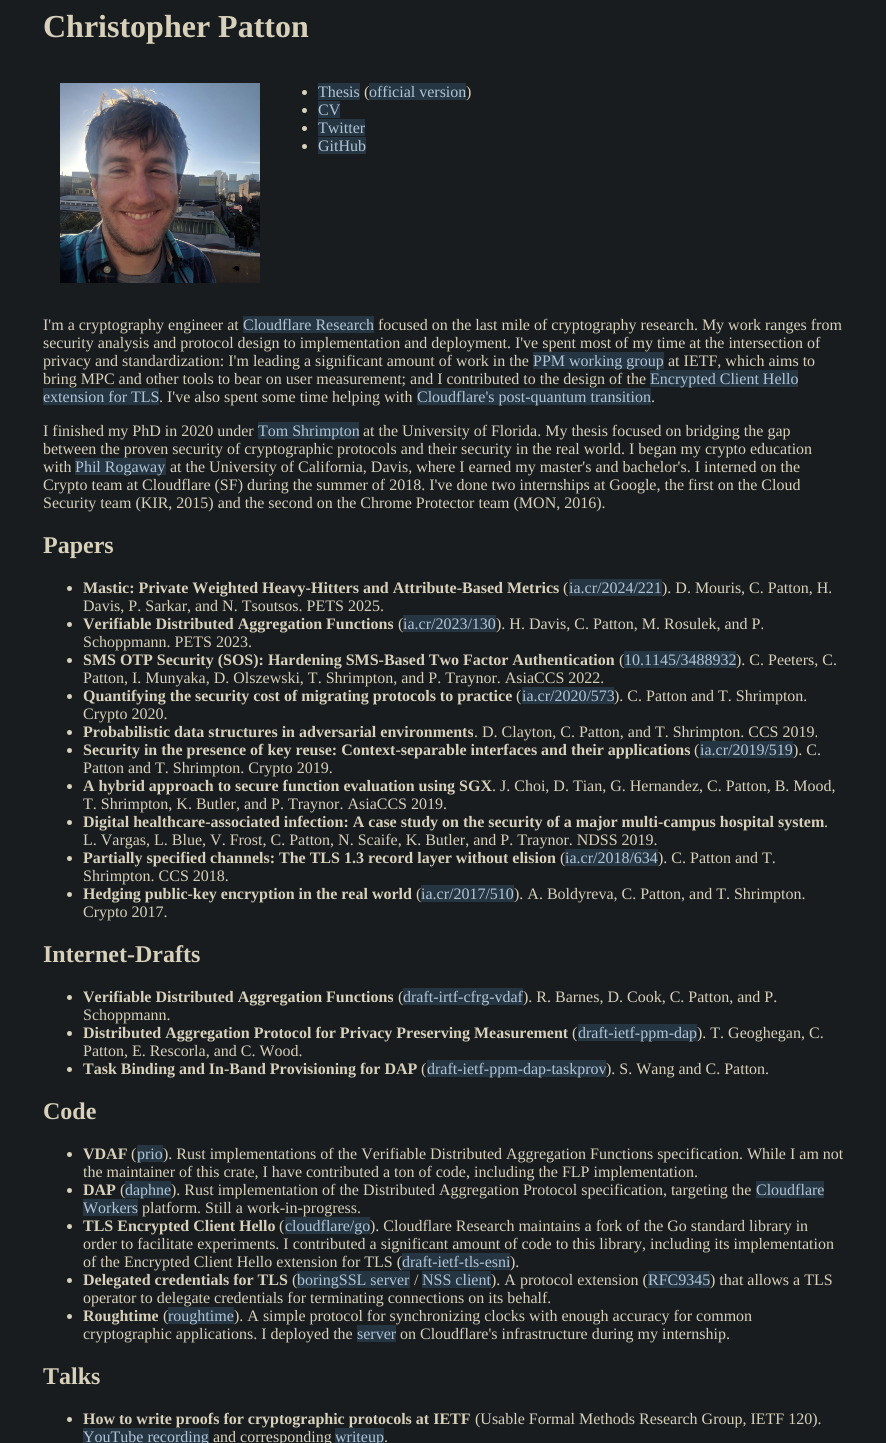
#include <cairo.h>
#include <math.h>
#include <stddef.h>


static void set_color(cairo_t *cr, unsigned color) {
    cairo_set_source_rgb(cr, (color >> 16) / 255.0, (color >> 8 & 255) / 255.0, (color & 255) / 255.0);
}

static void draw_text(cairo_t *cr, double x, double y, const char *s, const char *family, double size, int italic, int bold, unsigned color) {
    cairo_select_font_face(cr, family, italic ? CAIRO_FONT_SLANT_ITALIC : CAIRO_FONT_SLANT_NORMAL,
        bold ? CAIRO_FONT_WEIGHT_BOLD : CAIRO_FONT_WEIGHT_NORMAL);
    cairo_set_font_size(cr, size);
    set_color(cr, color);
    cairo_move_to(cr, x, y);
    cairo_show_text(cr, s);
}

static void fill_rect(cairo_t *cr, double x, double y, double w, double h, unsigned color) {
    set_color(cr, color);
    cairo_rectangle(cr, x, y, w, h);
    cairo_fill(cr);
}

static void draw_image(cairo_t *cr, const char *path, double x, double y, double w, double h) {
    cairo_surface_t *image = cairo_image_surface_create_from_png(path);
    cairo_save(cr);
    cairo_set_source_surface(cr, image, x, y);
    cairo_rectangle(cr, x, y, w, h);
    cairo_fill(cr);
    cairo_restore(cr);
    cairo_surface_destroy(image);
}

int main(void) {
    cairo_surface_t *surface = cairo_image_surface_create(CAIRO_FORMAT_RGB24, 886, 1443);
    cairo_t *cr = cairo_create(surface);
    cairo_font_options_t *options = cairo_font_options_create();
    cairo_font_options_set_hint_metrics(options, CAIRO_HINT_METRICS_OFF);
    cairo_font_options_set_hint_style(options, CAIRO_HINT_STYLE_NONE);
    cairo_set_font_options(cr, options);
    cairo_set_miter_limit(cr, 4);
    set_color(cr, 0x181C1E);
    cairo_paint(cr);
    draw_text(cr, 43, 37, "Christopher Patton", "Liberation Serif", 32, 0, 1, 0xD7D0BB);
    draw_image(cr, "assets/img1.png", 60, 83, 200, 200);
    cairo_arc(cr, 304.5, 92.5, 2.5, 0, 2 * M_PI);
    cairo_fill(cr);
    fill_rect(cr, 318, 83, 42, 17, 0x253542);
    draw_text(cr, 318, 97, "Thesis", "Liberation Serif", 16, 0, 0, 0xB1C4D5);
    draw_text(cr, 364, 97, "(", "Liberation Serif", 16, 0, 0, 0xD7D0BB);
    fill_rect(cr, 369, 83, 97, 17, 0x253542);
    draw_text(cr, 369, 97, "official version", "Liberation Serif", 16, 0, 0, 0xB1C4D5);
    draw_text(cr, 466, 97, ")", "Liberation Serif", 16, 0, 0, 0xD7D0BB);
    cairo_new_path(cr);
    cairo_arc(cr, 304.5, 110.5, 2.5, 0, 2 * M_PI);
    cairo_fill(cr);
    fill_rect(cr, 318, 101, 22, 17, 0x253542);
    draw_text(cr, 318, 115, "CV", "Liberation Serif", 16, 0, 0, 0xB1C4D5);
    set_color(cr, 0xD7D0BB);
    cairo_new_path(cr);
    cairo_arc(cr, 304.5, 128.5, 2.5, 0, 2 * M_PI);
    cairo_fill(cr);
    fill_rect(cr, 318, 119, 47, 17, 0x253542);
    draw_text(cr, 318, 133, "Twitter", "Liberation Serif", 16, 0, 0, 0xB1C4D5);
    set_color(cr, 0xD7D0BB);
    cairo_new_path(cr);
    cairo_arc(cr, 304.5, 146.5, 2.5, 0, 2 * M_PI);
    cairo_fill(cr);
    fill_rect(cr, 318, 137, 48, 17, 0x253542);
    draw_text(cr, 318, 151, "GitHub", "Liberation Serif", 16, 0, 0, 0xB1C4D5);
    draw_text(cr, 43, 330, "I'm a cryptography engineer at", "Liberation Serif", 16, 0, 0, 0xD7D0BB);
    fill_rect(cr, 243, 316, 131, 17, 0x253542);
    draw_text(cr, 243, 330, "Cloudflare Research", "Liberation Serif", 16, 0, 0, 0xB1C4D5);
    draw_text(cr, 378, 330, "focused on the last mile of cryptography research. My work ranges from", "Liberation Serif", 16, 0, 0, 0xD7D0BB);
    draw_text(cr, 43, 348, "security analysis and protocol design to implementation and deployment. I've spent most of my time at the intersection of", "Liberation Serif", 16, 0, 0, 0xD7D0BB);
    draw_text(cr, 43, 366, "privacy and standardization: I'm leading a significant amount of work in the", "Liberation Serif", 16, 0, 0, 0xD7D0BB);
    fill_rect(cr, 533, 352, 131, 17, 0x253542);
    draw_text(cr, 533, 366, "PPM working group", "Liberation Serif", 16, 0, 0, 0xB1C4D5);
    draw_text(cr, 668, 366, "at IETF, which aims to", "Liberation Serif", 16, 0, 0, 0xD7D0BB);
    draw_text(cr, 43, 384, "bring MPC and other tools to bear on user measurement; and I contributed to the design of the", "Liberation Serif", 16, 0, 0, 0xD7D0BB);
    fill_rect(cr, 650, 370, 148, 17, 0x253542);
    draw_text(cr, 650, 384, "Encrypted Client Hello", "Liberation Serif", 16, 0, 0, 0xB1C4D5);
    fill_rect(cr, 43, 388, 116, 17, 0x253542);
    draw_text(cr, 43, 402, "extension for TLS", "Liberation Serif", 16, 0, 0, 0xB1C4D5);
    draw_text(cr, 159, 402, ". I've also spent some time helping with", "Liberation Serif", 16, 0, 0, 0xD7D0BB);
    fill_rect(cr, 417, 388, 234, 17, 0x253542);
    draw_text(cr, 417, 402, "Cloudflare's post-quantum transition", "Liberation Serif", 16, 0, 0, 0xB1C4D5);
    draw_text(cr, 651, 402, ".", "Liberation Serif", 16, 0, 0, 0xD7D0BB);
    draw_text(cr, 43, 436, "I finished my PhD in 2020 under", "Liberation Serif", 16, 0, 0, 0xD7D0BB);
    fill_rect(cr, 258, 422, 101, 17, 0x253542);
    draw_text(cr, 258, 436, "Tom Shrimpton", "Liberation Serif", 16, 0, 0, 0xB1C4D5);
    draw_text(cr, 363, 436, "at the University of Florida. My thesis focused on bridging the gap", "Liberation Serif", 16, 0, 0, 0xD7D0BB);
    draw_text(cr, 43, 454, "between the proven security of cryptographic protocols and their security in the real world. I began my crypto education", "Liberation Serif", 16, 0, 0, 0xD7D0BB);
    draw_text(cr, 43, 472, "with", "Liberation Serif", 16, 0, 0, 0xD7D0BB);
    fill_rect(cr, 75, 458, 91, 17, 0x253542);
    draw_text(cr, 75, 472, "Phil Rogaway", "Liberation Serif", 16, 0, 0, 0xB1C4D5);
    draw_text(cr, 170, 472, "at the University of California, Davis, where I earned my master's and bachelor's. I interned on the", "Liberation Serif", 16, 0, 0, 0xD7D0BB);
    draw_text(cr, 43, 490, "Crypto team at Cloudflare (SF) during the summer of 2018. I've done two internships at Google, the first on the Cloud", "Liberation Serif", 16, 0, 0, 0xD7D0BB);
    draw_text(cr, 43, 508, "Security team (KIR, 2015) and the second on the Chrome Protector team (MON, 2016).", "Liberation Serif", 16, 0, 0, 0xD7D0BB);
    draw_text(cr, 43, 553, "Papers", "Liberation Serif", 24, 0, 1, 0xD7D0BB);
    cairo_new_path(cr);
    cairo_arc(cr, 69.5, 588.5, 2.5, 0, 2 * M_PI);
    cairo_fill(cr);
    draw_text(cr, 83, 593, "Mastic: Private Weighted Heavy-Hitters and Attribute-Based Metrics", "Liberation Serif", 16, 0, 1, 0xD7D0BB);
    draw_text(cr, 563, 593, "(", "Liberation Serif", 16, 0, 0, 0xD7D0BB);
    fill_rect(cr, 569, 579, 93, 17, 0x253542);
    draw_text(cr, 569, 593, "ia.cr/2024/221", "Liberation Serif", 16, 0, 0, 0xB1C4D5);
    draw_text(cr, 662, 593, "). D. Mouris, C. Patton, H.", "Liberation Serif", 16, 0, 0, 0xD7D0BB);
    draw_text(cr, 83, 611, "Davis, P. Sarkar, and N. Tsoutsos. PETS 2025.", "Liberation Serif", 16, 0, 0, 0xD7D0BB);
    cairo_new_path(cr);
    cairo_arc(cr, 69.5, 624.5, 2.5, 0, 2 * M_PI);
    cairo_fill(cr);
    draw_text(cr, 83, 629, "Verifiable Distributed Aggregation Functions", "Liberation Serif", 16, 0, 1, 0xD7D0BB);
    draw_text(cr, 398, 629, "(", "Liberation Serif", 16, 0, 0, 0xD7D0BB);
    fill_rect(cr, 403, 615, 93, 17, 0x253542);
    draw_text(cr, 403, 629, "ia.cr/2023/130", "Liberation Serif", 16, 0, 0, 0xB1C4D5);
    draw_text(cr, 496, 629, "). H. Davis, C. Patton, M. Rosulek, and P.", "Liberation Serif", 16, 0, 0, 0xD7D0BB);
    draw_text(cr, 83, 647, "Schoppmann. PETS 2023.", "Liberation Serif", 16, 0, 0, 0xD7D0BB);
    cairo_new_path(cr);
    cairo_arc(cr, 69.5, 660.5, 2.5, 0, 2 * M_PI);
    cairo_fill(cr);
    draw_text(cr, 83, 665, "SMS OTP Security (SOS): Hardening SMS-Based Two Factor Authentication", "Liberation Serif", 16, 0, 1, 0xD7D0BB);
    draw_text(cr, 619, 665, "(", "Liberation Serif", 16, 0, 0, 0xD7D0BB);
    fill_rect(cr, 624, 651, 112, 17, 0x253542);
    draw_text(cr, 624, 665, "10.1145/3488932", "Liberation Serif", 16, 0, 0, 0xB1C4D5);
    draw_text(cr, 736, 665, "). C. Peeters, C.", "Liberation Serif", 16, 0, 0, 0xD7D0BB);
    draw_text(cr, 83, 683, "Patton, I. Munyaka, D. Olszewski, T. Shrimpton, and P. Traynor. AsiaCCS 2022.", "Liberation Serif", 16, 0, 0, 0xD7D0BB);
    cairo_new_path(cr);
    cairo_arc(cr, 69.5, 696.5, 2.5, 0, 2 * M_PI);
    cairo_fill(cr);
    draw_text(cr, 83, 701, "Quantifying the security cost of migrating protocols to practice", "Liberation Serif", 16, 0, 1, 0xD7D0BB);
    draw_text(cr, 516, 701, "(", "Liberation Serif", 16, 0, 0, 0xD7D0BB);
    fill_rect(cr, 522, 687, 92, 17, 0x253542);
    draw_text(cr, 522, 701, "ia.cr/2020/573", "Liberation Serif", 16, 0, 0, 0xB1C4D5);
    draw_text(cr, 614, 701, "). C. Patton and T. Shrimpton.", "Liberation Serif", 16, 0, 0, 0xD7D0BB);
    draw_text(cr, 83, 719, "Crypto 2020.", "Liberation Serif", 16, 0, 0, 0xD7D0BB);
    cairo_new_path(cr);
    cairo_arc(cr, 69.5, 732.5, 2.5, 0, 2 * M_PI);
    cairo_fill(cr);
    draw_text(cr, 83, 737, "Probabilistic data structures in adversarial environments", "Liberation Serif", 16, 0, 1, 0xD7D0BB);
    draw_text(cr, 474, 737, ". D. Clayton, C. Patton, and T. Shrimpton. CCS 2019.", "Liberation Serif", 16, 0, 0, 0xD7D0BB);
    cairo_new_path(cr);
    cairo_arc(cr, 69.5, 750.5, 2.5, 0, 2 * M_PI);
    cairo_fill(cr);
    draw_text(cr, 83, 755, "Security in the presence of key reuse: Context-separable interfaces and their applications", "Liberation Serif", 16, 0, 1, 0xD7D0BB);
    draw_text(cr, 694, 755, "(", "Liberation Serif", 16, 0, 0, 0xD7D0BB);
    fill_rect(cr, 700, 741, 93, 17, 0x253542);
    draw_text(cr, 700, 755, "ia.cr/2019/519", "Liberation Serif", 16, 0, 0, 0xB1C4D5);
    draw_text(cr, 793, 755, "). C.", "Liberation Serif", 16, 0, 0, 0xD7D0BB);
    draw_text(cr, 83, 773, "Patton and T. Shrimpton. Crypto 2019.", "Liberation Serif", 16, 0, 0, 0xD7D0BB);
    cairo_new_path(cr);
    cairo_arc(cr, 69.5, 786.5, 2.5, 0, 2 * M_PI);
    cairo_fill(cr);
    draw_text(cr, 83, 791, "A hybrid approach to secure function evaluation using SGX", "Liberation Serif", 16, 0, 1, 0xD7D0BB);
    draw_text(cr, 492, 791, ". J. Choi, D. Tian, G. Hernandez, C. Patton, B. Mood,", "Liberation Serif", 16, 0, 0, 0xD7D0BB);
    draw_text(cr, 83, 809, "T. Shrimpton, K. Butler, and P. Traynor. AsiaCCS 2019.", "Liberation Serif", 16, 0, 0, 0xD7D0BB);
    cairo_new_path(cr);
    cairo_arc(cr, 69.5, 822.5, 2.5, 0, 2 * M_PI);
    cairo_fill(cr);
    draw_text(cr, 83, 827, "Digital healthcare-associated infection: A case study on the security of a major multi-campus hospital system", "Liberation Serif", 16, 0, 1, 0xD7D0BB);
    draw_text(cr, 824, 827, ".", "Liberation Serif", 16, 0, 0, 0xD7D0BB);
    draw_text(cr, 83, 845, "L. Vargas, L. Blue, V. Frost, C. Patton, N. Scaife, K. Butler, and P. Traynor. NDSS 2019.", "Liberation Serif", 16, 0, 0, 0xD7D0BB);
    cairo_new_path(cr);
    cairo_arc(cr, 69.5, 858.5, 2.5, 0, 2 * M_PI);
    cairo_fill(cr);
    draw_text(cr, 83, 863, "Partially specified channels: The TLS 1.3 record layer without elision", "Liberation Serif", 16, 0, 1, 0xD7D0BB);
    draw_text(cr, 560, 863, "(", "Liberation Serif", 16, 0, 0, 0xD7D0BB);
    fill_rect(cr, 565, 849, 93, 17, 0x253542);
    draw_text(cr, 565, 863, "ia.cr/2018/634", "Liberation Serif", 16, 0, 0, 0xB1C4D5);
    draw_text(cr, 658, 863, "). C. Patton and T.", "Liberation Serif", 16, 0, 0, 0xD7D0BB);
    draw_text(cr, 83, 881, "Shrimpton. CCS 2018.", "Liberation Serif", 16, 0, 0, 0xD7D0BB);
    cairo_new_path(cr);
    cairo_arc(cr, 69.5, 894.5, 2.5, 0, 2 * M_PI);
    cairo_fill(cr);
    draw_text(cr, 83, 899, "Hedging public-key encryption in the real world", "Liberation Serif", 16, 0, 1, 0xD7D0BB);
    draw_text(cr, 416, 899, "(", "Liberation Serif", 16, 0, 0, 0xD7D0BB);
    fill_rect(cr, 421, 885, 93, 17, 0x253542);
    draw_text(cr, 421, 899, "ia.cr/2017/510", "Liberation Serif", 16, 0, 0, 0xB1C4D5);
    draw_text(cr, 514, 899, "). A. Boldyreva, C. Patton, and T. Shrimpton.", "Liberation Serif", 16, 0, 0, 0xD7D0BB);
    draw_text(cr, 83, 917, "Crypto 2017.", "Liberation Serif", 16, 0, 0, 0xD7D0BB);
    draw_text(cr, 43, 962, "Internet-Drafts", "Liberation Serif", 24, 0, 1, 0xD7D0BB);
    cairo_new_path(cr);
    cairo_arc(cr, 69.5, 997.5, 2.5, 0, 2 * M_PI);
    cairo_fill(cr);
    draw_text(cr, 83, 1002, "Verifiable Distributed Aggregation Functions", "Liberation Serif", 16, 0, 1, 0xD7D0BB);
    draw_text(cr, 398, 1002, "(", "Liberation Serif", 16, 0, 0, 0xD7D0BB);
    fill_rect(cr, 403, 988, 120, 17, 0x253542);
    draw_text(cr, 403, 1002, "draft-irtf-cfrg-vdaf", "Liberation Serif", 16, 0, 0, 0xB1C4D5);
    draw_text(cr, 523, 1002, "). R. Barnes, D. Cook, C. Patton, and P.", "Liberation Serif", 16, 0, 0, 0xD7D0BB);
    draw_text(cr, 83, 1020, "Schoppmann.", "Liberation Serif", 16, 0, 0, 0xD7D0BB);
    cairo_new_path(cr);
    cairo_arc(cr, 69.5, 1033.5, 2.5, 0, 2 * M_PI);
    cairo_fill(cr);
    draw_text(cr, 83, 1038, "Distributed Aggregation Protocol for Privacy Preserving Measurement", "Liberation Serif", 16, 0, 1, 0xD7D0BB);
    draw_text(cr, 572, 1038, "(", "Liberation Serif", 16, 0, 0, 0xD7D0BB);
    fill_rect(cr, 578, 1024, 119, 17, 0x253542);
    draw_text(cr, 578, 1038, "draft-ietf-ppm-dap", "Liberation Serif", 16, 0, 0, 0xB1C4D5);
    draw_text(cr, 697, 1038, "). T. Geoghegan, C.", "Liberation Serif", 16, 0, 0, 0xD7D0BB);
    draw_text(cr, 83, 1056, "Patton, E. Rescorla, and C. Wood.", "Liberation Serif", 16, 0, 0, 0xD7D0BB);
    cairo_new_path(cr);
    cairo_arc(cr, 69.5, 1069.5, 2.5, 0, 2 * M_PI);
    cairo_fill(cr);
    draw_text(cr, 83, 1074, "Task Binding and In-Band Provisioning for DAP", "Liberation Serif", 16, 0, 1, 0xD7D0BB);
    draw_text(cr, 421, 1074, "(", "Liberation Serif", 16, 0, 0, 0xD7D0BB);
    fill_rect(cr, 427, 1060, 179, 17, 0x253542);
    draw_text(cr, 427, 1074, "draft-ietf-ppm-dap-taskprov", "Liberation Serif", 16, 0, 0, 0xB1C4D5);
    draw_text(cr, 606, 1074, "). S. Wang and C. Patton.", "Liberation Serif", 16, 0, 0, 0xD7D0BB);
    draw_text(cr, 43, 1119, "Code", "Liberation Serif", 24, 0, 1, 0xD7D0BB);
    cairo_new_path(cr);
    cairo_arc(cr, 69.5, 1154.5, 2.5, 0, 2 * M_PI);
    cairo_fill(cr);
    draw_text(cr, 83, 1159, "VDAF", "Liberation Serif", 16, 0, 1, 0xD7D0BB);
    draw_text(cr, 131, 1159, "(", "Liberation Serif", 16, 0, 0, 0xD7D0BB);
    fill_rect(cr, 137, 1145, 26, 17, 0x253542);
    draw_text(cr, 137, 1159, "prio", "Liberation Serif", 16, 0, 0, 0xB1C4D5);
    draw_text(cr, 163, 1159, "). Rust implementations of the Verifiable Distributed Aggregation Functions specification. While I am not", "Liberation Serif", 16, 0, 0, 0xD7D0BB);
    draw_text(cr, 83, 1177, "the maintainer of this crate, I have contributed a ton of code, including the FLP implementation.", "Liberation Serif", 16, 0, 0, 0xD7D0BB);
    cairo_new_path(cr);
    cairo_arc(cr, 69.5, 1190.5, 2.5, 0, 2 * M_PI);
    cairo_fill(cr);
    draw_text(cr, 83, 1195, "DAP", "Liberation Serif", 16, 0, 1, 0xD7D0BB);
    draw_text(cr, 120, 1195, "(", "Liberation Serif", 16, 0, 0, 0xD7D0BB);
    fill_rect(cr, 125, 1181, 46, 17, 0x253542);
    draw_text(cr, 125, 1195, "daphne", "Liberation Serif", 16, 0, 0, 0xB1C4D5);
    draw_text(cr, 171, 1195, "). Rust implementation of the Distributed Aggregation Protocol specification, targeting the", "Liberation Serif", 16, 0, 0, 0xD7D0BB);
    fill_rect(cr, 756, 1181, 68, 17, 0x253542);
    draw_text(cr, 756, 1195, "Cloudflare", "Liberation Serif", 16, 0, 0, 0xB1C4D5);
    fill_rect(cr, 83, 1199, 55, 17, 0x253542);
    draw_text(cr, 83, 1213, "Workers", "Liberation Serif", 16, 0, 0, 0xB1C4D5);
    draw_text(cr, 142, 1213, "platform. Still a work-in-progress.", "Liberation Serif", 16, 0, 0, 0xD7D0BB);
    cairo_new_path(cr);
    cairo_arc(cr, 69.5, 1226.5, 2.5, 0, 2 * M_PI);
    cairo_fill(cr);
    draw_text(cr, 83, 1231, "TLS Encrypted Client Hello", "Liberation Serif", 16, 0, 1, 0xD7D0BB);
    draw_text(cr, 279, 1231, "(", "Liberation Serif", 16, 0, 0, 0xD7D0BB);
    fill_rect(cr, 285, 1217, 85, 17, 0x253542);
    draw_text(cr, 285, 1231, "cloudflare/go", "Liberation Serif", 16, 0, 0, 0xB1C4D5);
    draw_text(cr, 370, 1231, "). Cloudflare Research maintains a fork of the Go standard library in", "Liberation Serif", 16, 0, 0, 0xD7D0BB);
    draw_text(cr, 83, 1249, "order to facilitate experiments. I contributed a significant amount of code to this library, including its implementation", "Liberation Serif", 16, 0, 0, 0xD7D0BB);
    draw_text(cr, 83, 1267, "of the Encrypted Client Hello extension for TLS (", "Liberation Serif", 16, 0, 0, 0xD7D0BB);
    fill_rect(cr, 402, 1253, 108, 17, 0x253542);
    draw_text(cr, 402, 1267, "draft-ietf-tls-esni", "Liberation Serif", 16, 0, 0, 0xB1C4D5);
    draw_text(cr, 510, 1267, ").", "Liberation Serif", 16, 0, 0, 0xD7D0BB);
    cairo_new_path(cr);
    cairo_arc(cr, 69.5, 1280.5, 2.5, 0, 2 * M_PI);
    cairo_fill(cr);
    draw_text(cr, 83, 1285, "Delegated credentials for TLS", "Liberation Serif", 16, 0, 1, 0xD7D0BB);
    draw_text(cr, 292, 1285, "(", "Liberation Serif", 16, 0, 0, 0xD7D0BB);
    fill_rect(cr, 297, 1271, 113, 17, 0x253542);
    draw_text(cr, 297, 1285, "boringSSL server", "Liberation Serif", 16, 0, 0, 0xB1C4D5);
    draw_text(cr, 414, 1285, "/", "Liberation Serif", 16, 0, 0, 0xD7D0BB);
    fill_rect(cr, 422, 1271, 69, 17, 0x253542);
    draw_text(cr, 422, 1285, "NSS client", "Liberation Serif", 16, 0, 0, 0xB1C4D5);
    draw_text(cr, 491, 1285, "). A protocol extension (", "Liberation Serif", 16, 0, 0, 0xD7D0BB);
    fill_rect(cr, 648, 1271, 62, 17, 0x253542);
    draw_text(cr, 648, 1285, "RFC9345", "Liberation Serif", 16, 0, 0, 0xB1C4D5);
    draw_text(cr, 710, 1285, ") that allows a TLS", "Liberation Serif", 16, 0, 0, 0xD7D0BB);
    draw_text(cr, 83, 1303, "operator to delegate credentials for terminating connections on its behalf.", "Liberation Serif", 16, 0, 0, 0xD7D0BB);
    cairo_new_path(cr);
    cairo_arc(cr, 69.5, 1316.5, 2.5, 0, 2 * M_PI);
    cairo_fill(cr);
    draw_text(cr, 83, 1321, "Roughtime", "Liberation Serif", 16, 0, 1, 0xD7D0BB);
    draw_text(cr, 163, 1321, "(", "Liberation Serif", 16, 0, 0, 0xD7D0BB);
    fill_rect(cr, 168, 1307, 66, 17, 0x253542);
    draw_text(cr, 168, 1321, "roughtime", "Liberation Serif", 16, 0, 0, 0xB1C4D5);
    draw_text(cr, 234, 1321, "). A simple protocol for synchronizing clocks with enough accuracy for common", "Liberation Serif", 16, 0, 0, 0xD7D0BB);
    draw_text(cr, 83, 1339, "cryptographic applications. I deployed the", "Liberation Serif", 16, 0, 0, 0xD7D0BB);
    fill_rect(cr, 357, 1325, 39, 17, 0x253542);
    draw_text(cr, 357, 1339, "server", "Liberation Serif", 16, 0, 0, 0xB1C4D5);
    draw_text(cr, 400, 1339, "on Cloudflare's infrastructure during my internship.", "Liberation Serif", 16, 0, 0, 0xD7D0BB);
    draw_text(cr, 43, 1384, "Talks", "Liberation Serif", 24, 0, 1, 0xD7D0BB);
    cairo_new_path(cr);
    cairo_arc(cr, 69.5, 1419.5, 2.5, 0, 2 * M_PI);
    cairo_fill(cr);
    draw_text(cr, 83, 1424, "How to write proofs for cryptographic protocols at IETF", "Liberation Serif", 16, 0, 1, 0xD7D0BB);
    draw_text(cr, 475, 1424, "(Usable Formal Methods Research Group, IETF 120).", "Liberation Serif", 16, 0, 0, 0xD7D0BB);
    fill_rect(cr, 83, 1428, 126, 15, 0x253542);
    draw_text(cr, 83, 1442, "YouTube recording", "Liberation Serif", 16, 0, 0, 0xB1C4D5);
    draw_text(cr, 213, 1442, "and corresponding", "Liberation Serif", 16, 0, 0, 0xD7D0BB);
    fill_rect(cr, 335, 1428, 49, 15, 0x253542);
    draw_text(cr, 335, 1442, "writeup", "Liberation Serif", 16, 0, 0, 0xB1C4D5);
    draw_text(cr, 384, 1442, ".", "Liberation Serif", 16, 0, 0, 0xD7D0BB);
    cairo_surface_write_to_png(surface, "output.png");
    cairo_font_options_destroy(options);
    cairo_destroy(cr);
    cairo_surface_destroy(surface);
    return 0;
}
